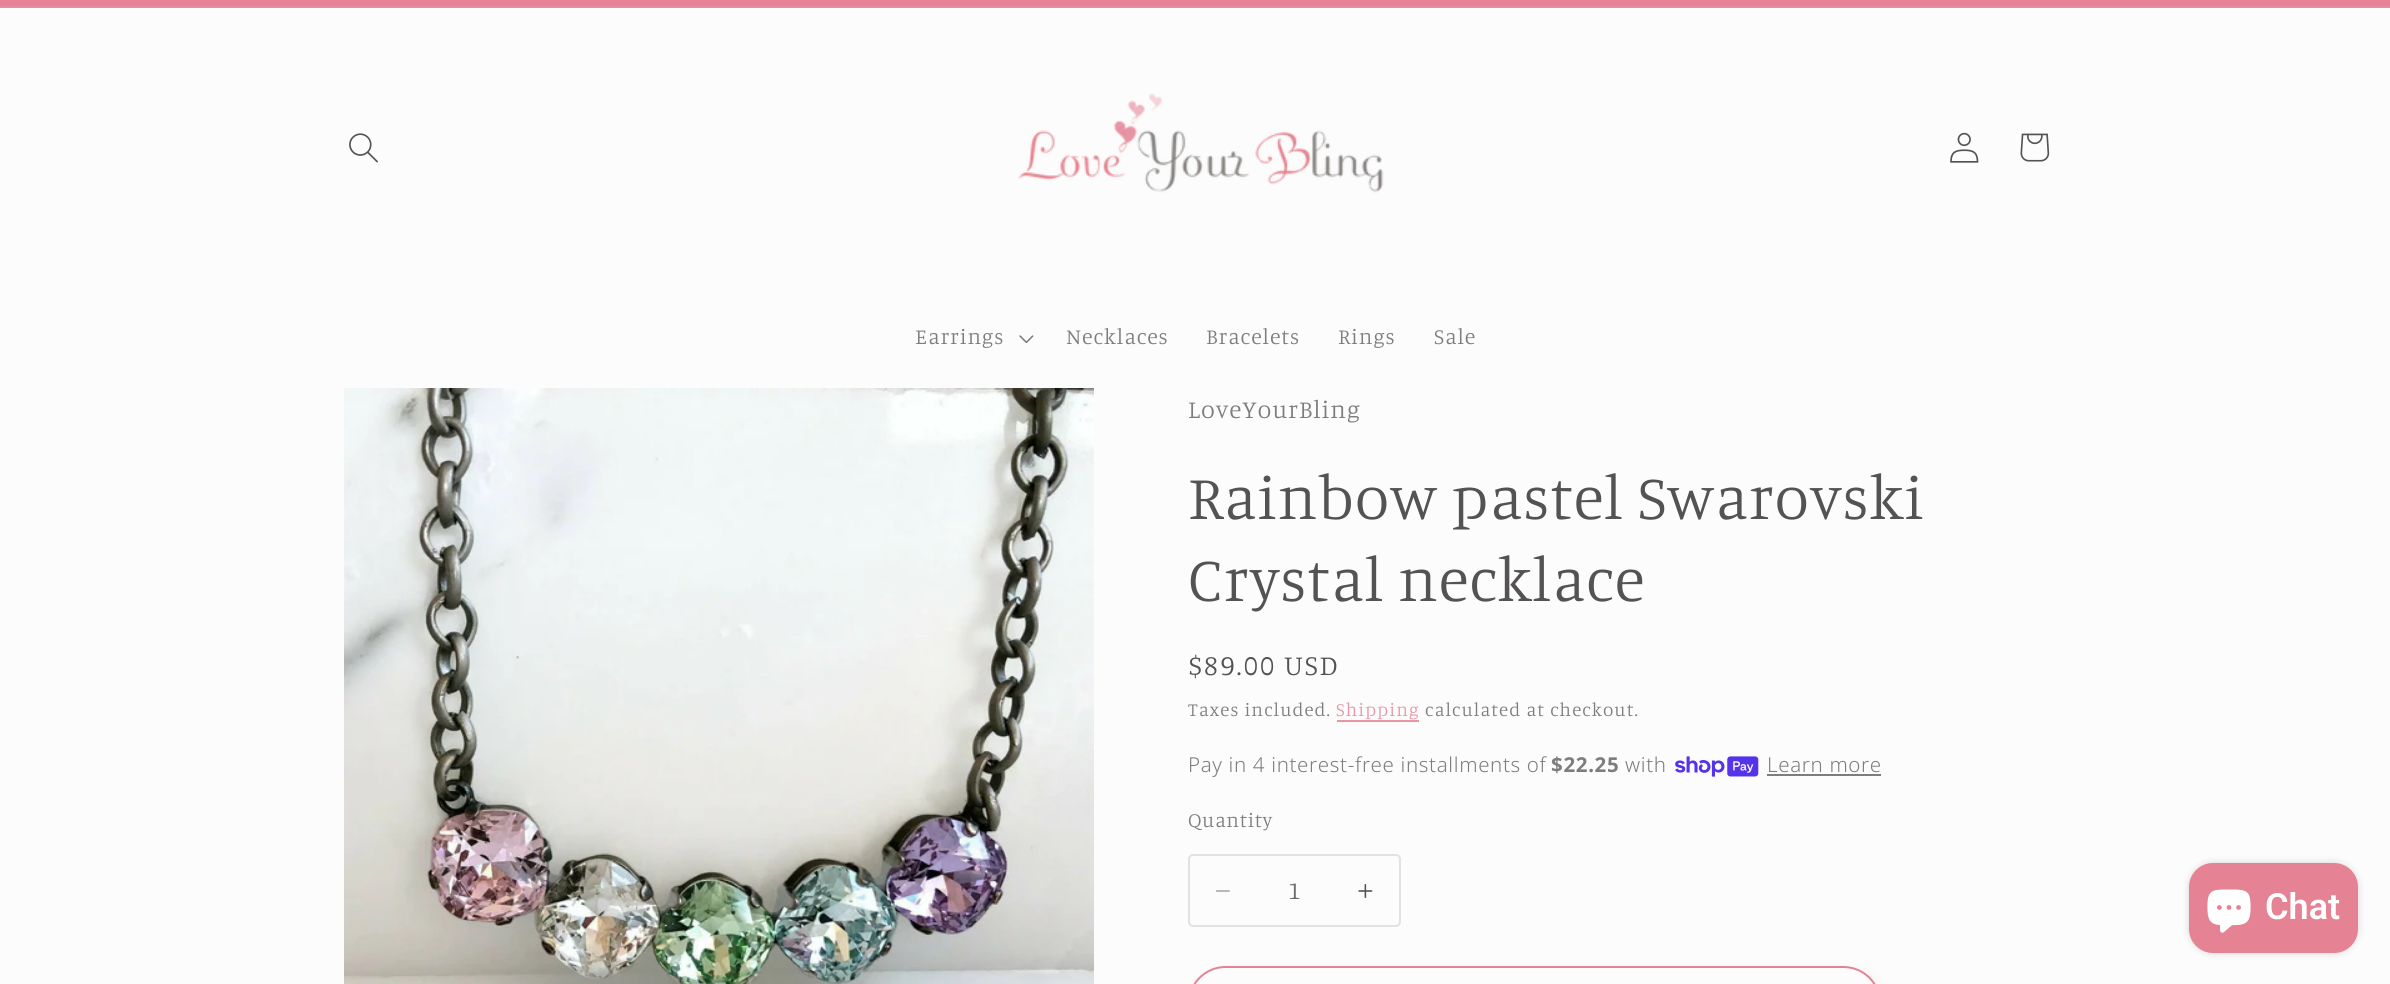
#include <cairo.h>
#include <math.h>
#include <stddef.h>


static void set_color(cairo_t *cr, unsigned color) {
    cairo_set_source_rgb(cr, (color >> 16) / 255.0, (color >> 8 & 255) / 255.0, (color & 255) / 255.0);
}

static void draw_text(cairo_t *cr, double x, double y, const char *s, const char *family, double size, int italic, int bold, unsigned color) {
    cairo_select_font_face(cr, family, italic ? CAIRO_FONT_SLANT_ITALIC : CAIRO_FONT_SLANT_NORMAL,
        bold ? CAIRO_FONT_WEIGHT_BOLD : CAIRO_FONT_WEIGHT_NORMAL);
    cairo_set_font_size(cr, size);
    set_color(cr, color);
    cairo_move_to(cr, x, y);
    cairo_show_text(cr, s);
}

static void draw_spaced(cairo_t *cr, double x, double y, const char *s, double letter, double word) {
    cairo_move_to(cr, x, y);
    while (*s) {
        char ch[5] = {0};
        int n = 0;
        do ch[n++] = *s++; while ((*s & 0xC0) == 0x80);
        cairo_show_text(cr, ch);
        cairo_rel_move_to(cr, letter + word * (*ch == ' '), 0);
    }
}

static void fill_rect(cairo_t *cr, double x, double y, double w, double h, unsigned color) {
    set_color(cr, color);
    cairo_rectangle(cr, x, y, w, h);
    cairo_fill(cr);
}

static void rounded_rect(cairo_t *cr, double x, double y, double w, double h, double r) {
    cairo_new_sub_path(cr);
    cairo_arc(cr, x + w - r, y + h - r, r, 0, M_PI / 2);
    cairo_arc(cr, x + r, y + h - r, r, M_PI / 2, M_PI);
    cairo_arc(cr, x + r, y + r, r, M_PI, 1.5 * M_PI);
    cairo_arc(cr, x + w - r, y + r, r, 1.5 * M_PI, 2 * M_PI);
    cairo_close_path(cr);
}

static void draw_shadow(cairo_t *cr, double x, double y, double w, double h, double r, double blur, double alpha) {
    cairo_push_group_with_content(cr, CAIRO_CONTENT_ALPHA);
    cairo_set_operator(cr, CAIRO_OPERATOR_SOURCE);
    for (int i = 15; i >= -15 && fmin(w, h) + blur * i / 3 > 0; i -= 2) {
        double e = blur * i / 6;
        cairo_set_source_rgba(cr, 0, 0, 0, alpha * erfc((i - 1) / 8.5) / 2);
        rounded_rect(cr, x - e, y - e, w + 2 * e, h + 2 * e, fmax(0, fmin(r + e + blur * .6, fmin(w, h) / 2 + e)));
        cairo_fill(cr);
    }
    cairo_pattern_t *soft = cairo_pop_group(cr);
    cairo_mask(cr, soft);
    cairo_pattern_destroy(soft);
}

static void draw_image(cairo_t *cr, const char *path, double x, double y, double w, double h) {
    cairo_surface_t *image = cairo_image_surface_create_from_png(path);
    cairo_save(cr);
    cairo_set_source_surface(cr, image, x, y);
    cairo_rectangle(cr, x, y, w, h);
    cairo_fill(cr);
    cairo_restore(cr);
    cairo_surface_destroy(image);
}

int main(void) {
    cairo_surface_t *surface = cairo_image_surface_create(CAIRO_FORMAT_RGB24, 2390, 984);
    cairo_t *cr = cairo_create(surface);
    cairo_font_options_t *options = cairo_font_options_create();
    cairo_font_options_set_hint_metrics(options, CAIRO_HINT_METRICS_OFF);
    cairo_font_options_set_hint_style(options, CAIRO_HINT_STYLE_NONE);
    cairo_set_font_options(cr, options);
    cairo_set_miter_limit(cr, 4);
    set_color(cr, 0xFCFCFC);
    cairo_paint(cr);
    fill_rect(cr, 0, 0, 2390, 6, 0xE58395);
    fill_rect(cr, 0, 6, 2390, 2, 0xE78D9D);
    draw_image(cr, "assets/img1.png", 349, 133, 29, 30);
    draw_image(cr, "assets/img2.png", 1018, 93, 366, 100);
    draw_image(cr, "assets/img3.png", 1950, 132, 29, 31);
    draw_image(cr, "assets/img4.png", 2020, 133, 30, 29);
    cairo_select_font_face(cr, "Manuale Light", CAIRO_FONT_SLANT_NORMAL, CAIRO_FONT_WEIGHT_NORMAL);
    cairo_set_font_size(cr, 22);
    set_color(cr, 0x7E7D7D);
    draw_spaced(cr, 915, 344, "Earrings", 0.95, 0);
    draw_image(cr, "assets/img5.png", 1019, 335, 15, 9);
    draw_spaced(cr, 1066, 344, "Necklaces", 0.95, 0);
    draw_spaced(cr, 1206, 344, "Bracelets", 0.95, 0);
    draw_spaced(cr, 1338, 344, "Rings", 0.95, 0);
    draw_spaced(cr, 1434, 344, "Sale", 0.95, 0);
    draw_image(cr, "assets/img6.png", 344, 388, 750, 596);
    cairo_set_font_size(cr, 25.25);
    draw_spaced(cr, 1188, 418, "LoveYourBling", 0.95, 0);
    cairo_set_font_size(cr, 63);
    set_color(cr, 0x545252);
    draw_spaced(cr, 1188, 519, "Rainbow pastel Swarovski", 0.95, 0);
    draw_spaced(cr, 1188, 601, "Crystal necklace", 0.95, 0);
    cairo_set_font_size(cr, 28.5);
    draw_spaced(cr, 1188, 675, "$89.00 USD", 2, 0);
    cairo_set_font_size(cr, 18.9);
    set_color(cr, 0x7E7D7D);
    draw_spaced(cr, 1188, 716, "Taxes included.", 1.1, 0);
    set_color(cr, 0xE895A4);
    draw_spaced(cr, 1336, 716, "Shipping", 1.1, 0);
    fill_rect(cr, 1337, 720, 82, 2, 0xE895A4);
    set_color(cr, 0x7E7D7D);
    draw_spaced(cr, 1425, 716, "calculated at checkout.", 1.1, 0);
    cairo_select_font_face(cr, "Noto Sans Light", CAIRO_FONT_SLANT_NORMAL, CAIRO_FONT_WEIGHT_NORMAL);
    cairo_set_font_size(cr, 20.5);
    draw_spaced(cr, 1188, 772, "Pay in 4 interest-free installments of", 0.65, 0);
    cairo_select_font_face(cr, "Noto Sans", CAIRO_FONT_SLANT_NORMAL, CAIRO_FONT_WEIGHT_BOLD);
    draw_spaced(cr, 1551, 772, "$22.25", 0.65, 0);
    cairo_select_font_face(cr, "Noto Sans Light", CAIRO_FONT_SLANT_NORMAL, CAIRO_FONT_WEIGHT_NORMAL);
    draw_spaced(cr, 1625, 772, "with", 0.65, 0);
    draw_image(cr, "assets/img7.png", 1675, 756, 84, 21);
    draw_spaced(cr, 1767, 772, "Learn more", 0.65, 0);
    fill_rect(cr, 1767, 774, 114, 2, 0x7E7D7D);
    cairo_select_font_face(cr, "Manuale Light", CAIRO_FONT_SLANT_NORMAL, CAIRO_FONT_WEIGHT_NORMAL);
    draw_spaced(cr, 1188, 827, "Quantity", 0.65, 0);
    draw_image(cr, "assets/img8.png", 1215, 890, 15, 2);
    draw_image(cr, "assets/img9.png", 1358, 884, 15, 14);
    rounded_rect(cr, 1189, 855, 211, 71, 4);
    set_color(cr, 0xE3E2E2);
    cairo_stroke(cr);
    draw_text(cr, 1288, 899, "1", "Manuale Light", 25.25, 0, 0, 0x6D6C6C);
    set_color(cr, 0xE58395);
    draw_shadow(cr, 1191, 969, 693, 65, 37.5, 4, 0.1);
    set_color(cr, 0xFCFCFC);
    rounded_rect(cr, 1189, 967, 691, 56, 36.5);
    cairo_fill_preserve(cr);
    set_color(cr, 0xE58395);
    cairo_stroke(cr);
    set_color(cr, 0x000000);
    draw_shadow(cr, 2189, 863, 169, 90, 24, 4, 0.15);
    set_color(cr, 0xE58395);
    rounded_rect(cr, 2189, 863, 169, 90, 24);
    cairo_fill(cr);
    draw_image(cr, "assets/img10.png", 2207, 889, 44, 44);
    draw_text(cr, 2265, 919, "Chat", "Roboto SemiBold", 36, 0, 0, 0xFFFFFF);
    cairo_surface_write_to_png(surface, "output.png");
    cairo_font_options_destroy(options);
    cairo_destroy(cr);
    cairo_surface_destroy(surface);
    return 0;
}
